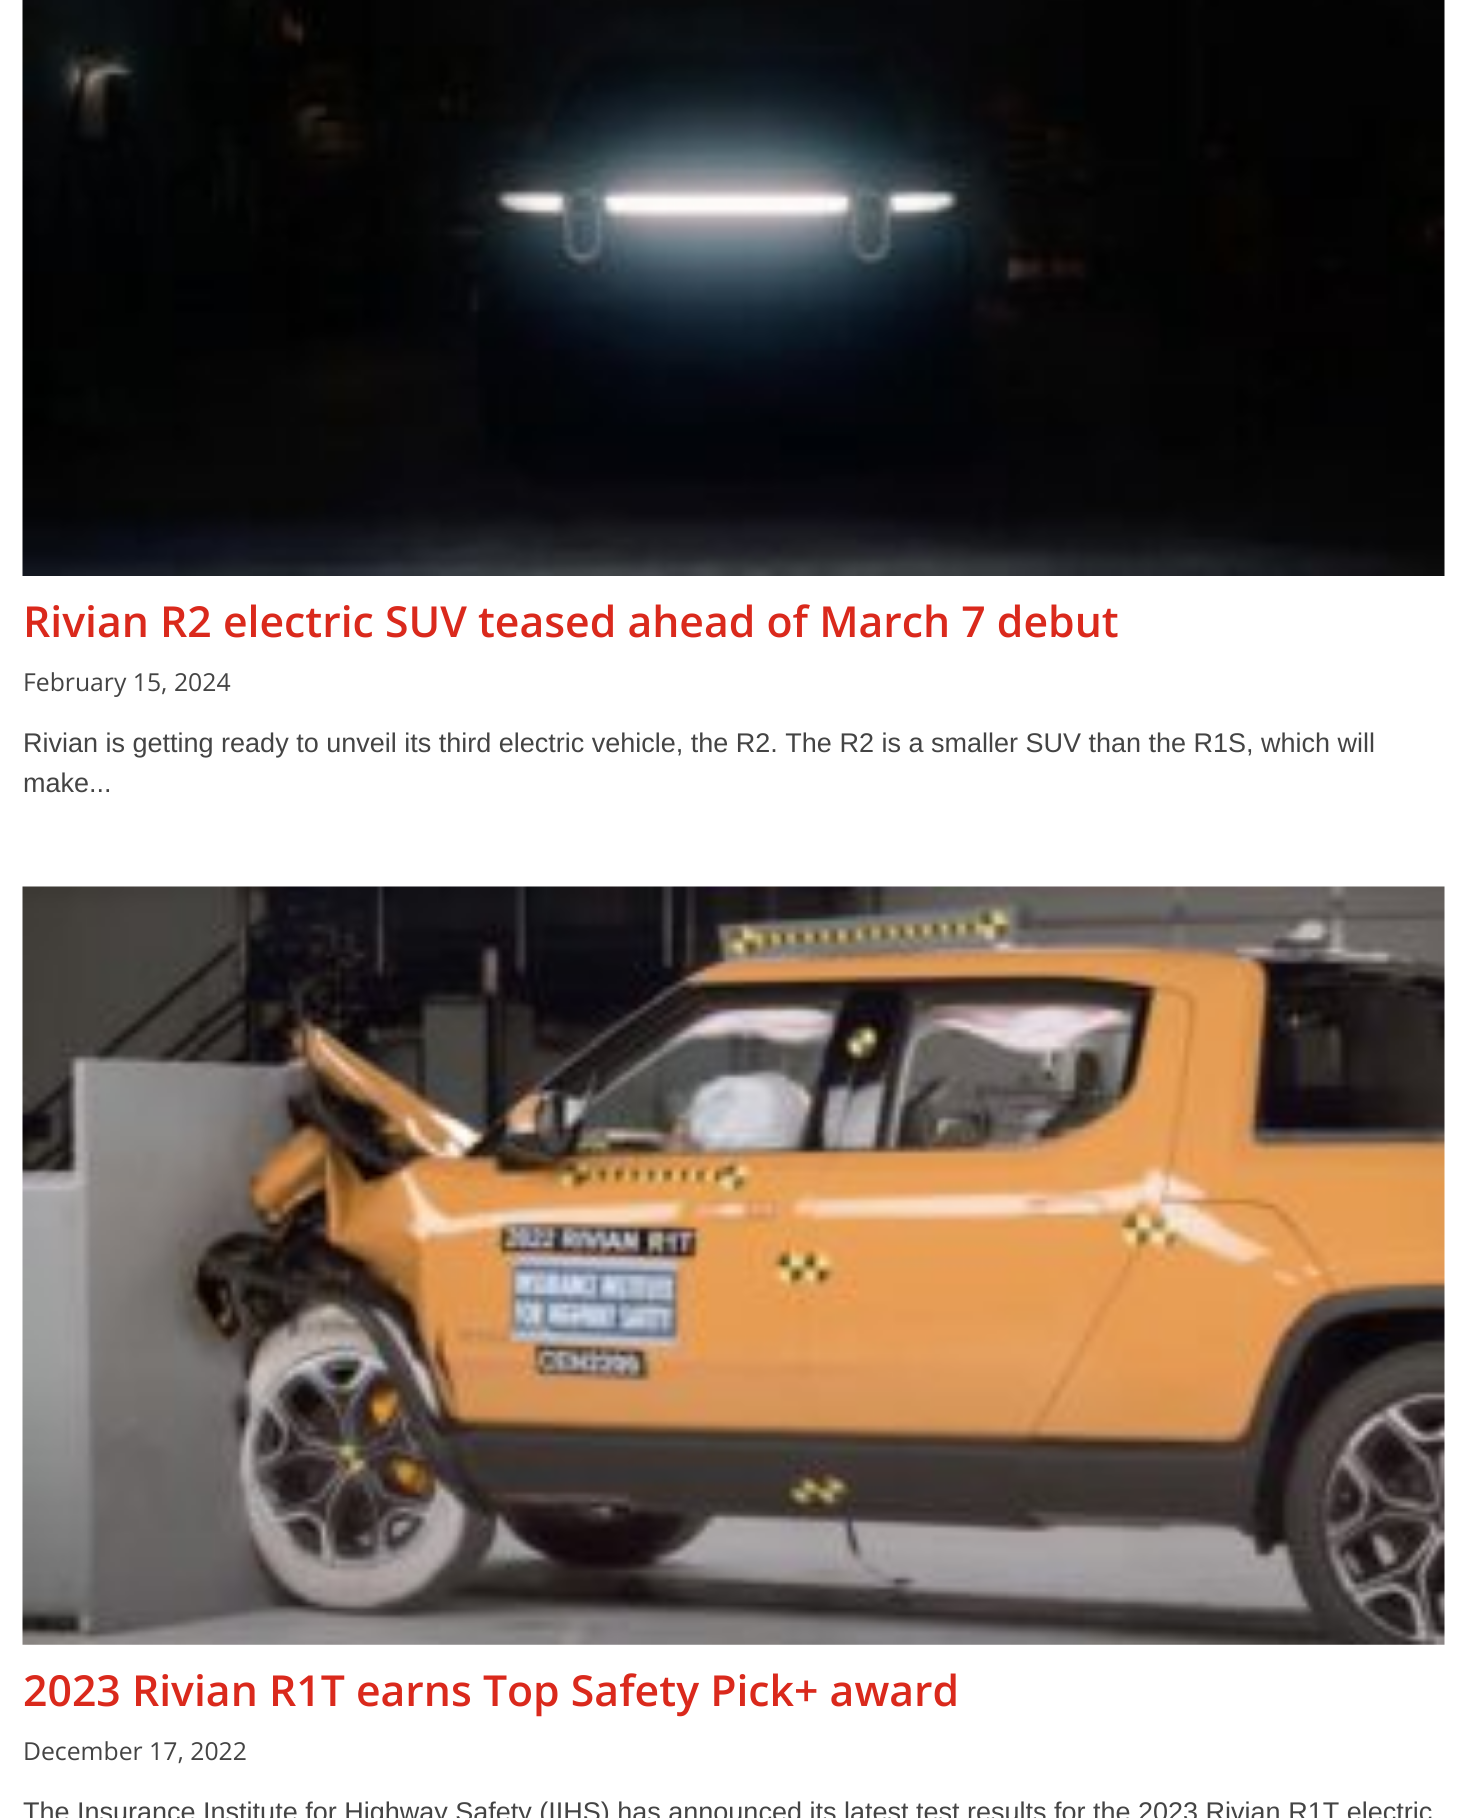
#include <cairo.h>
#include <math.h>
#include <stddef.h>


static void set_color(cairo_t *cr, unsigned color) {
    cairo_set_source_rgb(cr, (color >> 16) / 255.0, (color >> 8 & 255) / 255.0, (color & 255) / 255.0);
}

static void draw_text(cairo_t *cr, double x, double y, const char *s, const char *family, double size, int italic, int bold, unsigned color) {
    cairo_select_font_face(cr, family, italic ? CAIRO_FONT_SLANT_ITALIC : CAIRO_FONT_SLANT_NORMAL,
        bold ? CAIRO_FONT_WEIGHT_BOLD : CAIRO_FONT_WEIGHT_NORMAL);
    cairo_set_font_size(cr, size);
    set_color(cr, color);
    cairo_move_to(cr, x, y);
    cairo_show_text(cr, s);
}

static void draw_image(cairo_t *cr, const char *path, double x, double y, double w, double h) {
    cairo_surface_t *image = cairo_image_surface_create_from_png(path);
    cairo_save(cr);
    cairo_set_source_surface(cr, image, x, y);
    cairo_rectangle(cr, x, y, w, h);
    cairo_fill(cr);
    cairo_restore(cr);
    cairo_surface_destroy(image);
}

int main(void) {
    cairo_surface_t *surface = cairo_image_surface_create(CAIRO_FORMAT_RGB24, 1467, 1818);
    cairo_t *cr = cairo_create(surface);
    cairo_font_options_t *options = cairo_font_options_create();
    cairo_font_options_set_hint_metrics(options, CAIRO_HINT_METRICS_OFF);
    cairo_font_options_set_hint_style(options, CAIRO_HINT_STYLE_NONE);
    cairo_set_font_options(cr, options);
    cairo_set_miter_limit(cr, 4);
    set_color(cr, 0xFFFFFF);
    cairo_paint(cr);
    draw_image(cr, "assets/img1.png", 22, 0, 1423, 576);
    draw_text(cr, 23, 637, "Rivian R2 electric SUV teased ahead of March 7 debut", "Open Sans SemiBold", 42.75, 0, 0, 0xDA291C);
    draw_text(cr, 23, 691, "February 15, 2024", "Open Sans", 24.75, 0, 0, 0x444444);
    draw_text(cr, 23, 752, "Rivian is getting ready to unveil its third electric vehicle, the R2. The R2 is a smaller SUV than the R1S, which will", "Liberation Sans", 27, 0, 0, 0x444444);
    draw_text(cr, 23, 792, "make...", "Liberation Sans", 27, 0, 0, 0x444444);
    draw_image(cr, "assets/img2.png", 22, 886, 1423, 759);
    draw_text(cr, 23, 1706, "2023 Rivian R1T earns Top Safety Pick+ award", "Open Sans SemiBold", 42.75, 0, 0, 0xDA291C);
    draw_text(cr, 23, 1760, "December 17, 2022", "Open Sans", 24.75, 0, 0, 0x444444);
    draw_text(cr, 23, 1821, "The Insurance Institute for Highway Safety (IIHS) has announced its latest test results for the 2023 Rivian R1T electric", "Liberation Sans", 27, 0, 0, 0x444444);
    cairo_surface_write_to_png(surface, "output.png");
    cairo_font_options_destroy(options);
    cairo_destroy(cr);
    cairo_surface_destroy(surface);
    return 0;
}
